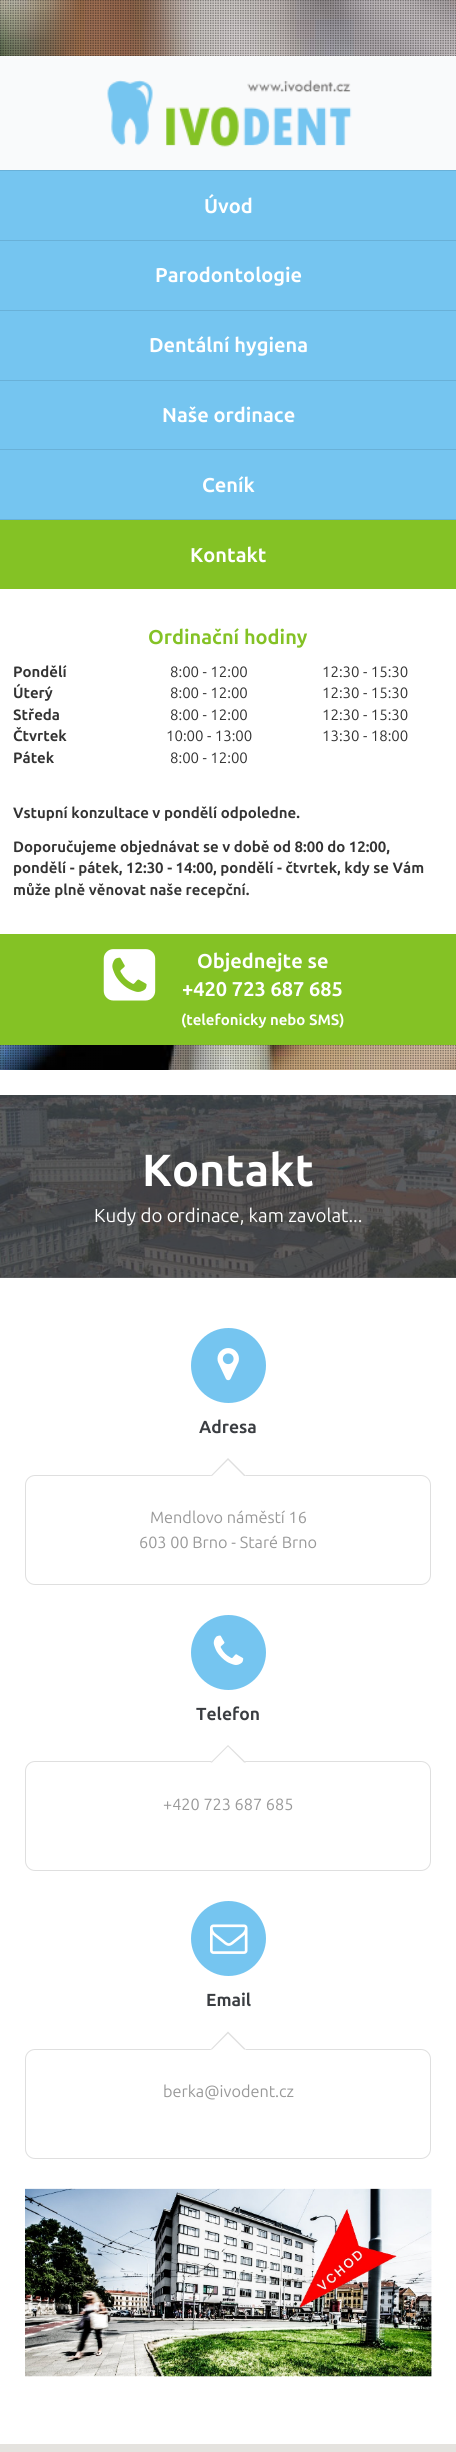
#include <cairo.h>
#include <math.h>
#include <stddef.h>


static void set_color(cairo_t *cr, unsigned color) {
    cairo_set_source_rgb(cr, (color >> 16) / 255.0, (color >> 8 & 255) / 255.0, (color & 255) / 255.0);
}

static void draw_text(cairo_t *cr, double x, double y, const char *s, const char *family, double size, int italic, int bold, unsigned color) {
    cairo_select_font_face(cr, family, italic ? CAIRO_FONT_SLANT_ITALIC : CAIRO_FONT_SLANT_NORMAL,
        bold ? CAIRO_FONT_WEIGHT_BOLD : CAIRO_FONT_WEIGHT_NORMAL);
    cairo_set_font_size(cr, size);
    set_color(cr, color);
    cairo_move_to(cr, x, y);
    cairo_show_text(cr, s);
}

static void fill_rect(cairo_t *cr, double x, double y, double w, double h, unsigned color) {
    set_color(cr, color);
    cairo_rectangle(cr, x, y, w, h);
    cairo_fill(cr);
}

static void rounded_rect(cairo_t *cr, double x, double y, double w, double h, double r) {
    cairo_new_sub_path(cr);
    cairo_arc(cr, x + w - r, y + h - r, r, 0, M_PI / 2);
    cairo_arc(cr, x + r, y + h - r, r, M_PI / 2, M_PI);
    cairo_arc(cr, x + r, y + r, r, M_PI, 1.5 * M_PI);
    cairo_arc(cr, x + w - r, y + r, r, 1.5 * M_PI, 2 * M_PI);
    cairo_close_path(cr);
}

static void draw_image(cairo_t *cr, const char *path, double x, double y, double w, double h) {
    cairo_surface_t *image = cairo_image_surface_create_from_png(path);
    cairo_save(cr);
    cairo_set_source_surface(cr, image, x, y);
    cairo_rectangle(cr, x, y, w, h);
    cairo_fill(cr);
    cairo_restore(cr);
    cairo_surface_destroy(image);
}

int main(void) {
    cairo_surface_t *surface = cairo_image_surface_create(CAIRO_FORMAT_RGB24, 456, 2452);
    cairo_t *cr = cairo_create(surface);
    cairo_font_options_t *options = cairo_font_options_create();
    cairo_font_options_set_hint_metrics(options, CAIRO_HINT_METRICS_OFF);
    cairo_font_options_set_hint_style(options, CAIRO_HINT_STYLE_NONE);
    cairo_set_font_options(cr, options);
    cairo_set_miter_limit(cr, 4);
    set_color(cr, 0xFFFFFF);
    cairo_paint(cr);
    draw_image(cr, "assets/img1.png", 0, 0, 456, 1070);
    draw_image(cr, "assets/img2.png", 0, 0, 456, 1070);
    fill_rect(cr, 0, 56, 456, 114, 0xF9FAFB);
    draw_image(cr, "assets/img3.png", 107, 80, 245, 67);
    fill_rect(cr, 0, 171, 456, 348, 0x75C5F0);
    fill_rect(cr, 0, 170, 456, 1, 0x69B1D8);
    draw_text(cr, 204, 213, "Úvod", "Ubuntu", 20, 0, 1, 0xFFFFFF);
    fill_rect(cr, 0, 240, 456, 1, 0x69B1D8);
    draw_text(cr, 155, 282, "Parodontologie", "Ubuntu", 20, 0, 1, 0xFFFFFF);
    fill_rect(cr, 0, 310, 456, 1, 0x69B1D8);
    draw_text(cr, 149, 352, "Dentální hygiena", "Ubuntu", 20, 0, 1, 0xFFFFFF);
    fill_rect(cr, 0, 380, 456, 1, 0x69B1D8);
    draw_text(cr, 162, 422, "Naše ordinace", "Ubuntu", 20, 0, 1, 0xFFFFFF);
    fill_rect(cr, 0, 449, 456, 1, 0x69B1D8);
    draw_text(cr, 202, 492, "Ceník", "Ubuntu", 20, 0, 1, 0xFFFFFF);
    fill_rect(cr, 0, 519, 456, 1, 0x69B1D8);
    fill_rect(cr, 0, 520, 456, 69, 0x84C225);
    draw_text(cr, 190, 562, "Kontakt", "Ubuntu", 20, 0, 1, 0xFFFFFF);
    fill_rect(cr, 0, 589, 456, 345, 0xFFFFFF);
    draw_text(cr, 148, 644, "Ordinační hodiny", "Ubuntu", 20, 0, 1, 0x84C225);
    draw_text(cr, 13, 677, "Pondělí", "Ubuntu", 15, 0, 1, 0x333333);
    draw_text(cr, 170, 677, "8:00 - 12:00", "Ubuntu", 15, 0, 0, 0x333333);
    draw_text(cr, 322, 677, "12:30 - 15:30", "Ubuntu", 15, 0, 0, 0x333333);
    draw_text(cr, 13, 698, "Úterý", "Ubuntu", 15, 0, 1, 0x333333);
    draw_text(cr, 170, 698, "8:00 - 12:00", "Ubuntu", 15, 0, 0, 0x333333);
    draw_text(cr, 322, 698, "12:30 - 15:30", "Ubuntu", 15, 0, 0, 0x333333);
    draw_text(cr, 13, 720, "Středa", "Ubuntu", 15, 0, 1, 0x333333);
    draw_text(cr, 170, 720, "8:00 - 12:00", "Ubuntu", 15, 0, 0, 0x333333);
    draw_text(cr, 322, 720, "12:30 - 15:30", "Ubuntu", 15, 0, 0, 0x333333);
    draw_text(cr, 13, 741, "Čtvrtek", "Ubuntu", 15, 0, 1, 0x333333);
    draw_text(cr, 166, 741, "10:00 - 13:00", "Ubuntu", 15, 0, 0, 0x333333);
    draw_text(cr, 322, 741, "13:30 - 18:00", "Ubuntu", 15, 0, 0, 0x333333);
    draw_text(cr, 13, 763, "Pátek", "Ubuntu", 15, 0, 1, 0x333333);
    draw_text(cr, 170, 763, "8:00 - 12:00", "Ubuntu", 15, 0, 0, 0x333333);
    draw_text(cr, 13, 818, "Vstupní konzultace v pondělí odpoledne.", "Ubuntu", 15, 0, 1, 0x333333);
    draw_text(cr, 13, 852, "Doporučujeme objednávat se v době od 8:00 do 12:00,", "Ubuntu", 15, 0, 1, 0x333333);
    draw_text(cr, 13, 873, "pondělí - pátek, 12:30 - 14:00, pondělí - čtvrtek, kdy se Vám", "Ubuntu", 15, 0, 1, 0x333333);
    draw_text(cr, 13, 895, "může plně věnovat naše recepční.", "Ubuntu", 15, 0, 1, 0x333333);
    fill_rect(cr, 0, 934, 456, 111, 0x84C225);
    draw_image(cr, "assets/img4.png", 103, 949, 53, 52);
    draw_text(cr, 197, 968, "Objednejte se", "Ubuntu", 20, 0, 1, 0xFFFFFF);
    draw_text(cr, 182, 996, "+420 723 687 685", "Ubuntu", 20, 0, 1, 0xFFFFFF);
    draw_text(cr, 181, 1025, "(telefonicky nebo SMS)", "Ubuntu", 15, 0, 1, 0xFFFFFF);
    draw_image(cr, "assets/img5.png", 0, 1095, 456, 183);
    cairo_set_source_rgba(cr, 0.227, 0.239, 0.255, 0.8);
    cairo_rectangle(cr, 0, 1095, 456, 183);
    cairo_fill(cr);
    draw_text(cr, 142, 1186, "Kontakt", "Ubuntu", 45, 0, 1, 0xFFFFFF);
    draw_text(cr, 94, 1222, "Kudy do ordinace, kam zavolat...", "Ubuntu", 18.75, 0, 0, 0xFFFFFF);
    set_color(cr, 0x75C5F0);
    cairo_new_path(cr);
    cairo_arc(cr, 228.5, 1365.5, 37.5, 0, 2 * M_PI);
    cairo_fill(cr);
    draw_image(cr, "assets/img6.png", 217, 1348, 22, 33);
    draw_text(cr, 199, 1433, "Adresa", "Ubuntu", 17.5, 0, 1, 0x3A3D41);
    rounded_rect(cr, 25.5, 1475.5, 405, 109, 9.5);
    set_color(cr, 0xDFDFDF);
    cairo_set_line_width(cr, 1);
    cairo_stroke(cr);
    set_color(cr, 0xFFFFFF);
    cairo_new_path(cr);
    cairo_move_to(cr, 228, 1458);
    cairo_line_to(cr, 246, 1476);
    cairo_line_to(cr, 228, 1493.5);
    cairo_line_to(cr, 210.5, 1476);
    cairo_close_path(cr);
    cairo_fill(cr);
    set_color(cr, 0xDFDFDF);
    cairo_new_path(cr);
    cairo_move_to(cr, 228, 1458);
    cairo_line_to(cr, 246, 1476);
    cairo_line_to(cr, 244, 1476);
    cairo_line_to(cr, 228, 1460);
    cairo_close_path(cr);
    cairo_move_to(cr, 210.5, 1476);
    cairo_line_to(cr, 228, 1458);
    cairo_line_to(cr, 228, 1460);
    cairo_line_to(cr, 212, 1476);
    cairo_close_path(cr);
    cairo_fill(cr);
    draw_text(cr, 150, 1523, "Mendlovo náměstí 16", "Ubuntu", 16.25, 0, 0, 0x999999);
    draw_text(cr, 139, 1548, "603 00 Brno - Staré Brno", "Ubuntu", 16.25, 0, 0, 0x999999);
    set_color(cr, 0x75C5F0);
    cairo_new_path(cr);
    cairo_arc(cr, 228.5, 1652.5, 37.5, 0, 2 * M_PI);
    cairo_fill(cr);
    draw_image(cr, "assets/img7.png", 213, 1635, 31, 30);
    draw_text(cr, 196, 1720, "Telefon", "Ubuntu", 17.5, 0, 1, 0x3A3D41);
    rounded_rect(cr, 25.5, 1761.5, 405, 109, 9.5);
    set_color(cr, 0xDFDFDF);
    cairo_stroke(cr);
    set_color(cr, 0xFFFFFF);
    cairo_new_path(cr);
    cairo_move_to(cr, 228, 1745);
    cairo_line_to(cr, 246, 1762.5);
    cairo_line_to(cr, 228, 1780.5);
    cairo_line_to(cr, 210.5, 1762.5);
    cairo_close_path(cr);
    cairo_fill(cr);
    set_color(cr, 0xDFDFDF);
    cairo_new_path(cr);
    cairo_move_to(cr, 228, 1745);
    cairo_line_to(cr, 246, 1762.5);
    cairo_line_to(cr, 244, 1762.5);
    cairo_line_to(cr, 228, 1746.5);
    cairo_close_path(cr);
    cairo_move_to(cr, 210.5, 1762.5);
    cairo_line_to(cr, 228, 1745);
    cairo_line_to(cr, 228, 1746.5);
    cairo_line_to(cr, 212, 1762.5);
    cairo_close_path(cr);
    cairo_fill(cr);
    draw_text(cr, 163, 1810, "+420 723 687 685", "Ubuntu", 16.25, 0, 0, 0x999999);
    set_color(cr, 0x75C5F0);
    cairo_new_path(cr);
    cairo_arc(cr, 228.5, 1938.5, 37.5, 0, 2 * M_PI);
    cairo_fill(cr);
    draw_image(cr, "assets/img8.png", 210, 1924, 38, 30);
    draw_text(cr, 206, 2006, "Email", "Ubuntu", 17.5, 0, 1, 0x3A3D41);
    rounded_rect(cr, 25.5, 2049.5, 405, 109, 9.5);
    set_color(cr, 0xDFDFDF);
    cairo_stroke(cr);
    set_color(cr, 0xFFFFFF);
    cairo_new_path(cr);
    cairo_move_to(cr, 228, 2031.5);
    cairo_line_to(cr, 246, 2049.5);
    cairo_line_to(cr, 228, 2067);
    cairo_line_to(cr, 210.5, 2049.5);
    cairo_close_path(cr);
    cairo_fill(cr);
    set_color(cr, 0xDFDFDF);
    cairo_new_path(cr);
    cairo_move_to(cr, 228, 2031.5);
    cairo_line_to(cr, 246, 2049.5);
    cairo_line_to(cr, 244, 2049.5);
    cairo_line_to(cr, 228, 2033.5);
    cairo_close_path(cr);
    cairo_move_to(cr, 210.5, 2049.5);
    cairo_line_to(cr, 228, 2031.5);
    cairo_line_to(cr, 228, 2033.5);
    cairo_line_to(cr, 212, 2049.5);
    cairo_close_path(cr);
    cairo_fill(cr);
    draw_text(cr, 163, 2097, "berka@ivodent.cz", "Ubuntu", 16.25, 0, 0, 0x999999);
    draw_image(cr, "assets/img9.png", 25, 2188, 407, 189);
    fill_rect(cr, 0, 2444, 456, 8, 0xE5E3DF);
    cairo_surface_write_to_png(surface, "output.png");
    cairo_font_options_destroy(options);
    cairo_destroy(cr);
    cairo_surface_destroy(surface);
    return 0;
}
